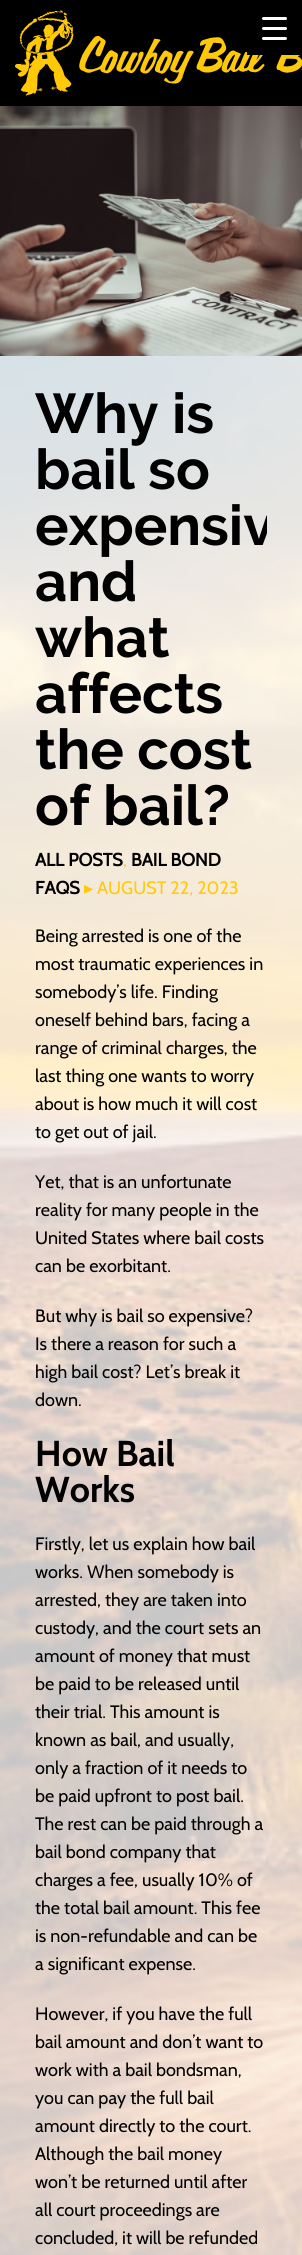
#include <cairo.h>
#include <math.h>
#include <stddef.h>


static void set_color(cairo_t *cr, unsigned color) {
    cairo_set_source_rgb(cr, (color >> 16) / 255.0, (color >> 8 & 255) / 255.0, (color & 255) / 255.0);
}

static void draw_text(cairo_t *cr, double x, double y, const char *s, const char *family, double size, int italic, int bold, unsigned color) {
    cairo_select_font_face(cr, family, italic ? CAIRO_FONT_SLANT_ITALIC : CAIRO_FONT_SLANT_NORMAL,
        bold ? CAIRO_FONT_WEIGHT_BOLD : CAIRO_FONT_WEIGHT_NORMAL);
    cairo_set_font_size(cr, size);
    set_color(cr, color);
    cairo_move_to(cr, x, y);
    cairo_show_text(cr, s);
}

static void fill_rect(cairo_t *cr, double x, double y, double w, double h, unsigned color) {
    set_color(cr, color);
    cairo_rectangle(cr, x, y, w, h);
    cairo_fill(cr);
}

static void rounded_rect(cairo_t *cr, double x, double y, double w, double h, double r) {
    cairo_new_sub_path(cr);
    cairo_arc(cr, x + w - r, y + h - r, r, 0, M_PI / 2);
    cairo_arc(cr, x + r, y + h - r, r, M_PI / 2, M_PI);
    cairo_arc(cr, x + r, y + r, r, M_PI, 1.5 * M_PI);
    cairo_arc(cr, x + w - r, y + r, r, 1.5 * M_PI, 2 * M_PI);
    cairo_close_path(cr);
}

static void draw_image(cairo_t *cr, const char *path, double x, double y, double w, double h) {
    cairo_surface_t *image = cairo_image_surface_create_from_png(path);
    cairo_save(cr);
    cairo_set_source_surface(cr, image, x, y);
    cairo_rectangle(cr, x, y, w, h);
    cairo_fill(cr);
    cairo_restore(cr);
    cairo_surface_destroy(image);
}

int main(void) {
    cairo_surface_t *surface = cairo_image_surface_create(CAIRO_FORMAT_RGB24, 302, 2255);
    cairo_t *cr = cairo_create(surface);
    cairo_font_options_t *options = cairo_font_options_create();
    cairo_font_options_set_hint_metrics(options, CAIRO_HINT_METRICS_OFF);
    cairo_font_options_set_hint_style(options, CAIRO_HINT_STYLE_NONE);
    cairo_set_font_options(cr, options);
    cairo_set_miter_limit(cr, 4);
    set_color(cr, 0xFFFFFF);
    cairo_paint(cr);
    fill_rect(cr, 0, 0, 302, 106, 0x000000);
    draw_image(cr, "assets/img2.png", 15, 10, 287, 86);
    fill_rect(cr, 247, 36, 55, 19, 0x000000);
    set_color(cr, 0xFFFFFF);
    rounded_rect(cr, 262, 27, 25, 3, 1.5);
    cairo_fill(cr);
    rounded_rect(cr, 262, 17, 25, 3, 1.5);
    cairo_fill(cr);
    rounded_rect(cr, 262, 37, 25, 3, 1.5);
    cairo_fill(cr);
    draw_image(cr, "assets/img1.png", 0, 356, 302, 1899);
    draw_image(cr, "assets/img3.png", 0, 106, 302, 250);
    draw_text(cr, 35, 433, "Why is", "Raleway", 56, 0, 1, 0x000000);
    draw_text(cr, 35, 489, "bail so", "Raleway", 56, 0, 1, 0x000000);
    cairo_save(cr);
    cairo_rectangle(cr, 35, 386, 232, 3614);
    cairo_clip(cr);
    draw_text(cr, 35, 545, "expensiv", "Raleway", 56, 0, 1, 0x000000);
    cairo_restore(cr);
    draw_text(cr, 35, 601, "and", "Raleway", 56, 0, 1, 0x000000);
    draw_text(cr, 35, 657, "what", "Raleway", 56, 0, 1, 0x000000);
    draw_text(cr, 35, 713, "affects", "Raleway", 56, 0, 1, 0x000000);
    draw_text(cr, 35, 769, "the cost", "Raleway", 56, 0, 1, 0x000000);
    draw_text(cr, 35, 825, "of bail?", "Raleway", 56, 0, 1, 0x000000);
    draw_text(cr, 35, 866, "ALL POSTS", "Cabin", 18, 0, 1, 0x000000);
    draw_text(cr, 123, 866, ",", "Cabin", 18, 0, 0, 0xFFC90A);
    draw_text(cr, 131, 866, "BAIL BOND", "Cabin", 18, 0, 1, 0x000000);
    draw_text(cr, 35, 894, "FAQS", "Cabin", 18, 0, 1, 0x000000);
    draw_text(cr, 84, 894, "▸", "DejaVu Sans", 18, 0, 0, 0xFFC90A);
    draw_text(cr, 97, 894, "AUGUST 22, 2023", "Cabin", 18, 0, 0, 0xFFC90A);
    draw_text(cr, 35, 942, "Being arrested is one of the", "Cabin", 18, 0, 0, 0x000000);
    draw_text(cr, 35, 970, "most traumatic experiences in", "Cabin", 18, 0, 0, 0x000000);
    draw_text(cr, 35, 998, "somebody’s life. Finding", "Cabin", 18, 0, 0, 0x000000);
    draw_text(cr, 35, 1026, "oneself behind bars, facing a", "Cabin", 18, 0, 0, 0x000000);
    draw_text(cr, 35, 1054, "range of criminal charges, the", "Cabin", 18, 0, 0, 0x000000);
    draw_text(cr, 35, 1082, "last thing one wants to worry", "Cabin", 18, 0, 0, 0x000000);
    draw_text(cr, 35, 1110, "about is how much it will cost", "Cabin", 18, 0, 0, 0x000000);
    draw_text(cr, 35, 1138, "to get out of jail.", "Cabin", 18, 0, 0, 0x000000);
    draw_text(cr, 35, 1188, "Yet, that is an unfortunate", "Cabin", 18, 0, 0, 0x000000);
    draw_text(cr, 35, 1216, "reality for many people in the", "Cabin", 18, 0, 0, 0x000000);
    draw_text(cr, 35, 1244, "United States where bail costs", "Cabin", 18, 0, 0, 0x000000);
    draw_text(cr, 35, 1272, "can be exorbitant.", "Cabin", 18, 0, 0, 0x000000);
    draw_text(cr, 35, 1322, "But why is bail so expensive?", "Cabin", 18, 0, 0, 0x000000);
    draw_text(cr, 35, 1350, "Is there a reason for such a", "Cabin", 18, 0, 0, 0x000000);
    draw_text(cr, 35, 1378, "high bail cost? Let’s break it", "Cabin", 18, 0, 0, 0x000000);
    draw_text(cr, 35, 1406, "down.", "Cabin", 18, 0, 0, 0x000000);
    draw_text(cr, 35, 1466, "How Bail", "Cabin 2", 36, 0, 1, 0x000000);
    draw_text(cr, 35, 1502, "Works", "Cabin 2", 36, 0, 1, 0x000000);
    draw_text(cr, 35, 1550, "Firstly, let us explain how bail", "Cabin", 18, 0, 0, 0x000000);
    draw_text(cr, 35, 1578, "works. When somebody is", "Cabin", 18, 0, 0, 0x000000);
    draw_text(cr, 35, 1606, "arrested, they are taken into", "Cabin", 18, 0, 0, 0x000000);
    draw_text(cr, 35, 1634, "custody, and the court sets an", "Cabin", 18, 0, 0, 0x000000);
    draw_text(cr, 35, 1662, "amount of money that must", "Cabin", 18, 0, 0, 0x000000);
    draw_text(cr, 35, 1690, "be paid to be released until", "Cabin", 18, 0, 0, 0x000000);
    draw_text(cr, 35, 1718, "their trial. This amount is", "Cabin", 18, 0, 0, 0x000000);
    draw_text(cr, 35, 1746, "known as bail, and usually,", "Cabin", 18, 0, 0, 0x000000);
    draw_text(cr, 35, 1774, "only a fraction of it needs to", "Cabin", 18, 0, 0, 0x000000);
    draw_text(cr, 35, 1802, "be paid upfront to post bail.", "Cabin", 18, 0, 0, 0x000000);
    draw_text(cr, 35, 1830, "The rest can be paid through a", "Cabin", 18, 0, 0, 0x000000);
    draw_text(cr, 35, 1858, "bail bond company that", "Cabin", 18, 0, 0, 0x000000);
    draw_text(cr, 35, 1886, "charges a fee, usually 10% of", "Cabin", 18, 0, 0, 0x000000);
    draw_text(cr, 35, 1914, "the total bail amount. This fee", "Cabin", 18, 0, 0, 0x000000);
    draw_text(cr, 35, 1942, "is non-refundable and can be", "Cabin", 18, 0, 0, 0x000000);
    draw_text(cr, 35, 1970, "a significant expense.", "Cabin", 18, 0, 0, 0x000000);
    draw_text(cr, 35, 2020, "However, if you have the full", "Cabin", 18, 0, 0, 0x000000);
    draw_text(cr, 35, 2048, "bail amount and don’t want to", "Cabin", 18, 0, 0, 0x000000);
    draw_text(cr, 35, 2076, "work with a bail bondsman,", "Cabin", 18, 0, 0, 0x000000);
    draw_text(cr, 35, 2104, "you can pay the full bail", "Cabin", 18, 0, 0, 0x000000);
    draw_text(cr, 35, 2132, "amount directly to the court.", "Cabin", 18, 0, 0, 0x000000);
    draw_text(cr, 35, 2160, "Although the bail money", "Cabin", 18, 0, 0, 0x000000);
    draw_text(cr, 35, 2188, "won’t be returned until after", "Cabin", 18, 0, 0, 0x000000);
    draw_text(cr, 35, 2216, "all court proceedings are", "Cabin", 18, 0, 0, 0x000000);
    draw_text(cr, 35, 2244, "concluded, it will be refunded", "Cabin", 18, 0, 0, 0x000000);
    cairo_surface_write_to_png(surface, "output.png");
    cairo_font_options_destroy(options);
    cairo_destroy(cr);
    cairo_surface_destroy(surface);
    return 0;
}
